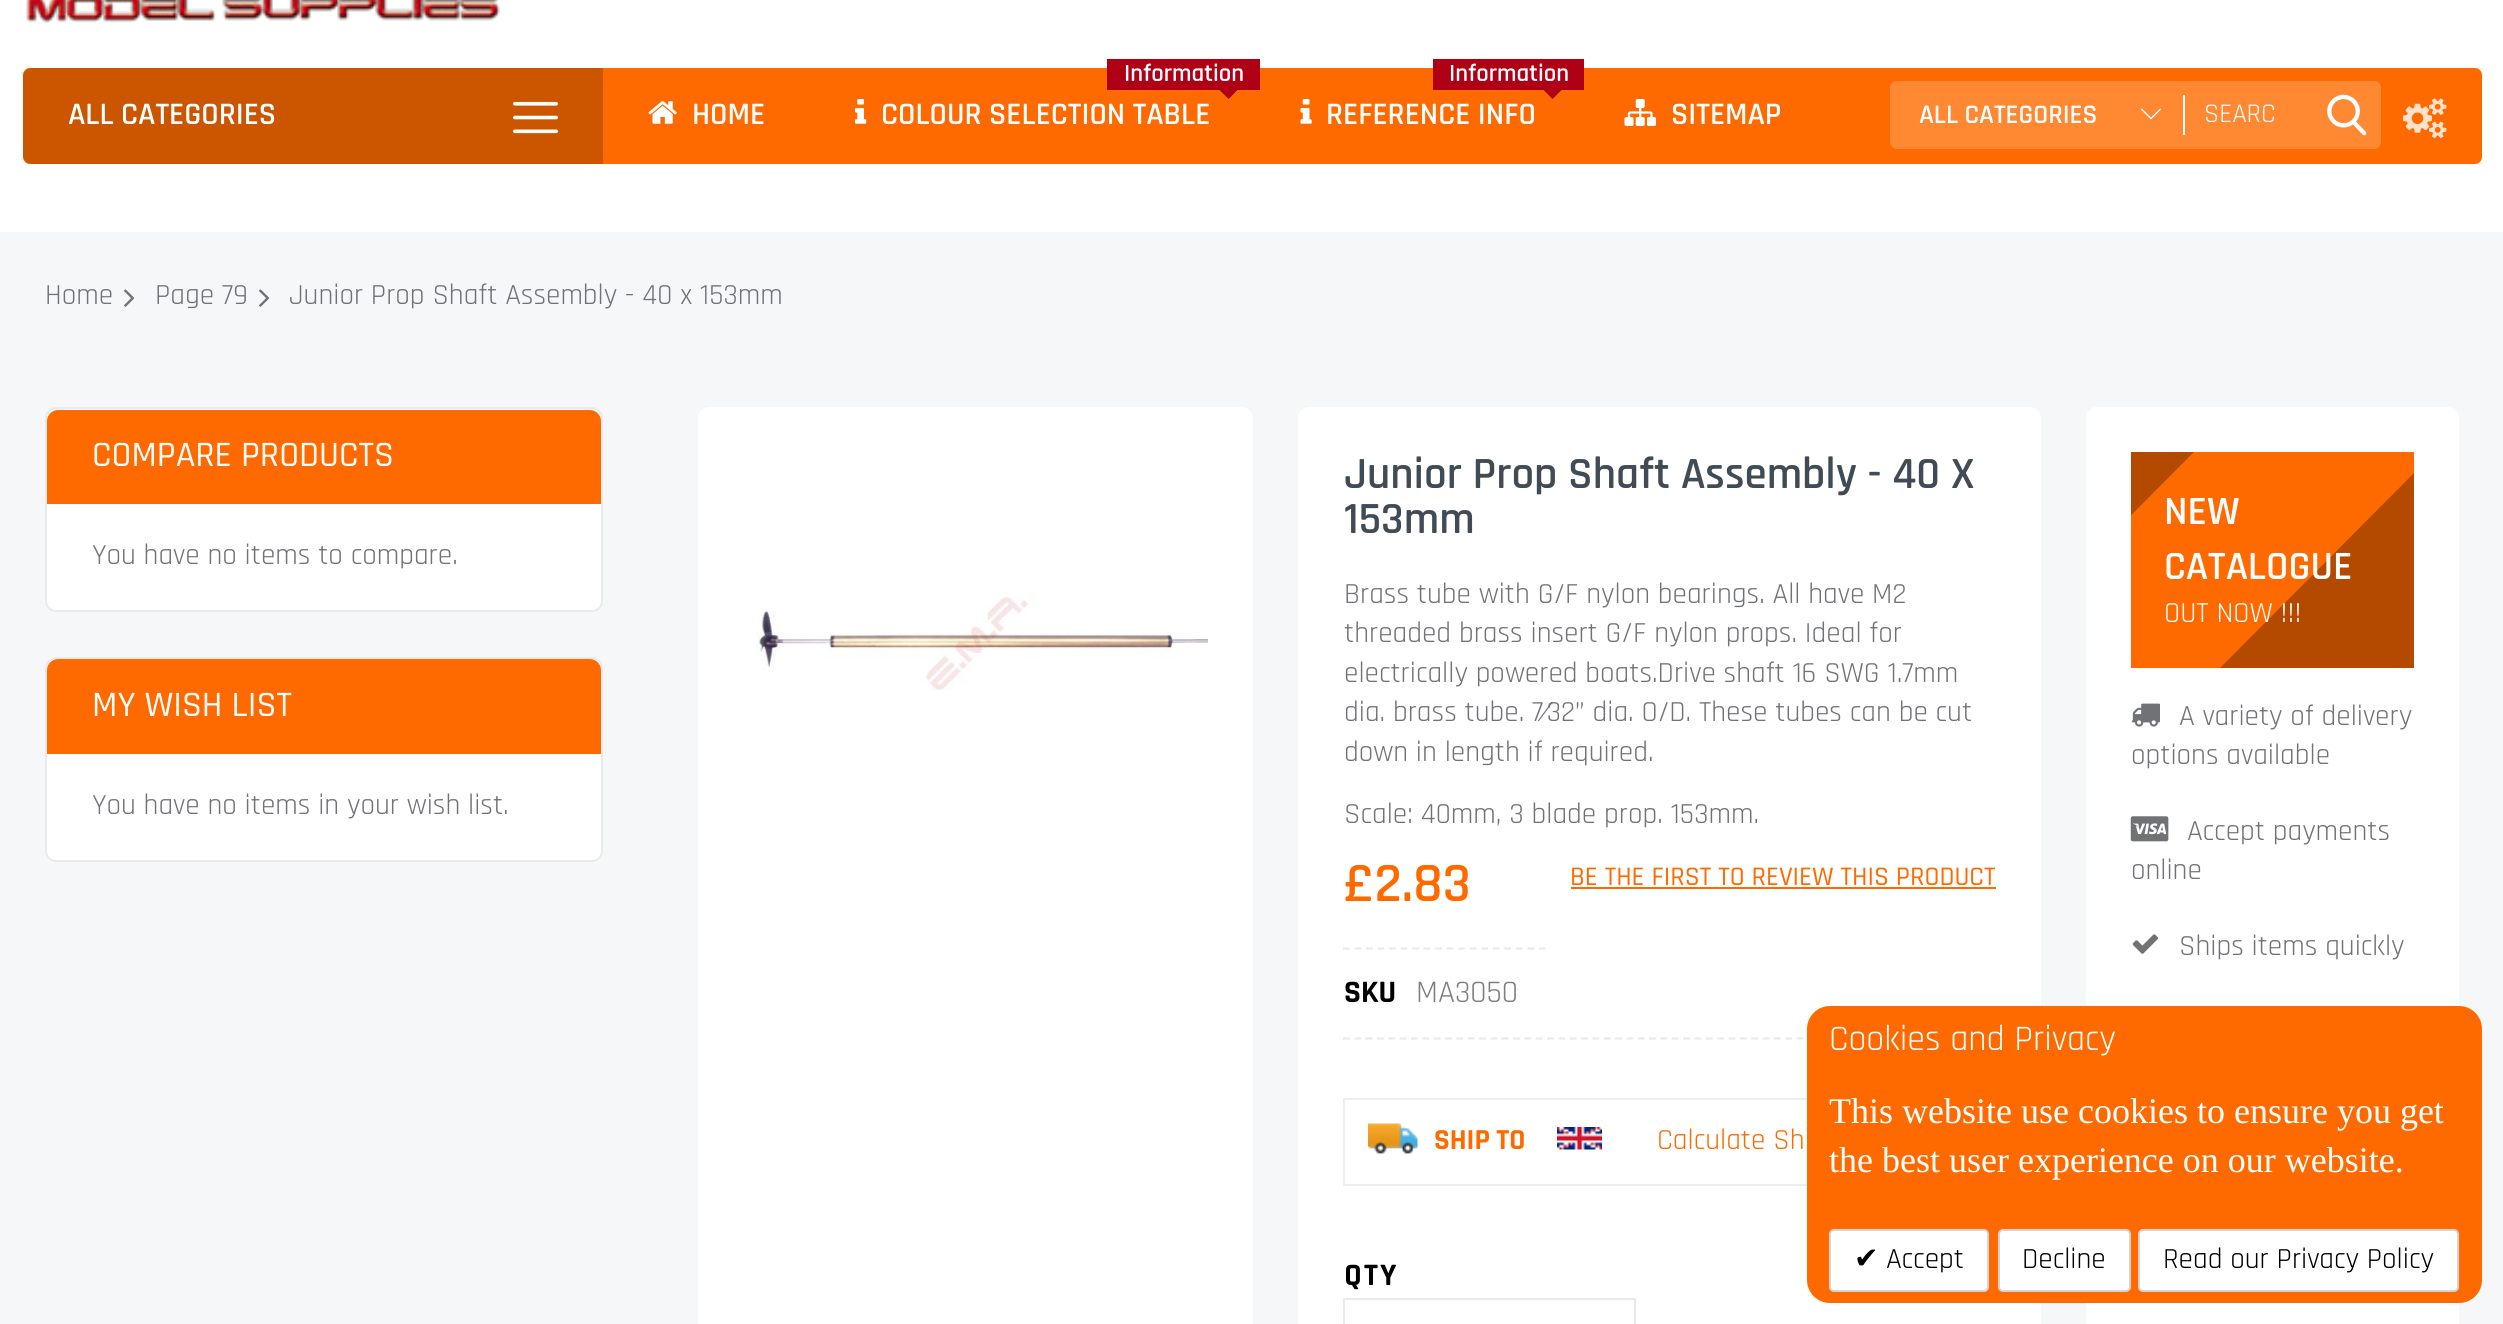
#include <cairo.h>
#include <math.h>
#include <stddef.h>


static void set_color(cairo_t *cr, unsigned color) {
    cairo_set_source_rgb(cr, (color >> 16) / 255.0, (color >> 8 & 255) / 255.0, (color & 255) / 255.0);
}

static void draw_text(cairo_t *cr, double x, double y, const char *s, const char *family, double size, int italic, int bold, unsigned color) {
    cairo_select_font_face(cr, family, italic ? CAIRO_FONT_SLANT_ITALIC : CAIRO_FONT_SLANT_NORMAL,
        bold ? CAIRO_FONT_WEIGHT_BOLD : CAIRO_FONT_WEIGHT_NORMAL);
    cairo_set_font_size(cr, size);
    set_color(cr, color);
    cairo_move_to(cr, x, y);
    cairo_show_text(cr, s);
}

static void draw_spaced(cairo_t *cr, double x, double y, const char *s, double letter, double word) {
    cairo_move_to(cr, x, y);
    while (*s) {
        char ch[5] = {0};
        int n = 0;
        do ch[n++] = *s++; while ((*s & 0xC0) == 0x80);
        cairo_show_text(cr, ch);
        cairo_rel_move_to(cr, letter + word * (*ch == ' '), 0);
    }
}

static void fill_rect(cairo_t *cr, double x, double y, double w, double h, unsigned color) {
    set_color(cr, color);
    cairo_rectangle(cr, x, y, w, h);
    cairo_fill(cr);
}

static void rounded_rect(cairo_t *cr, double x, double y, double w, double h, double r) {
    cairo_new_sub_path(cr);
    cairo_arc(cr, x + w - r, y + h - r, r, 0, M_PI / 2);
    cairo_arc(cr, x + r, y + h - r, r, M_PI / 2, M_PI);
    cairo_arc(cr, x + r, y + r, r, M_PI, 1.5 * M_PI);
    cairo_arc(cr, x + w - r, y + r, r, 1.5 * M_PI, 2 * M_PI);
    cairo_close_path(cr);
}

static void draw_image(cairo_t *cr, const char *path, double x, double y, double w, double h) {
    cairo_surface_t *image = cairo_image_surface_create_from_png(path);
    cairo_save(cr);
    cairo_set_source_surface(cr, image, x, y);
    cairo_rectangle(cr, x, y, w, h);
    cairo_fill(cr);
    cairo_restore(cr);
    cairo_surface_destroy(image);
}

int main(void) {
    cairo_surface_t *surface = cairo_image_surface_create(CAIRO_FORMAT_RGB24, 2503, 1324);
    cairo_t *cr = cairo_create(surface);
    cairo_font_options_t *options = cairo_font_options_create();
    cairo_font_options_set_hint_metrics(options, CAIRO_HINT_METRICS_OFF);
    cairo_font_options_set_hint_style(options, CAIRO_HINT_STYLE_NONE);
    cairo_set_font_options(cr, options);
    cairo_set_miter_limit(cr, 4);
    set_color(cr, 0xF6F7F9);
    cairo_paint(cr);
    fill_rect(cr, 0, 0, 2503, 232, 0xFFFFFF);
    draw_image(cr, "assets/img1.png", 25, 0, 475, 23);
    set_color(cr, 0xFF6A00);
    rounded_rect(cr, 23, 68, 2459, 96, 7);
    cairo_fill(cr);
    set_color(cr, 0xCC5500);
    cairo_new_path(cr);
    cairo_move_to(cr, 32, 68);
    cairo_line_to(cr, 603, 68);
    cairo_line_to(cr, 603, 164);
    cairo_line_to(cr, 32, 164);
    cairo_curve_to(cr, 27, 164, 23, 160, 23, 155);
    cairo_line_to(cr, 23, 77);
    cairo_curve_to(cr, 23, 72, 27, 68, 32, 68);
    cairo_close_path(cr);
    cairo_fill(cr);
    draw_text(cr, 68, 124, "ALL CATEGORIES", "Rajdhani SemiBold", 31.5, 0, 0, 0xFFFFFF);
    draw_image(cr, "assets/img2.png", 513, 101, 45, 33);
    draw_image(cr, "assets/img3.png", 648, 101, 29, 23);
    draw_text(cr, 692, 124, "HOME", "Rajdhani SemiBold", 31.5, 0, 0, 0xFFFFFF);
    fill_rect(cr, 1107, 59, 153, 31, 0xAF0015);
    draw_text(cr, 1124, 81, "Information", "Rajdhani SemiBold", 24.75, 0, 0, 0xFFFFFF);
    set_color(cr, 0xAF0015);
    cairo_new_path(cr);
    cairo_move_to(cr, 1219.5, 90);
    cairo_line_to(cr, 1237.5, 90);
    cairo_line_to(cr, 1228.5, 99);
    cairo_close_path(cr);
    cairo_fill(cr);
    draw_image(cr, "assets/img4.png", 855, 99, 12, 25);
    draw_text(cr, 881, 124, "COLOUR SELECTION TABLE", "Rajdhani SemiBold", 31.5, 0, 0, 0xFFFFFF);
    fill_rect(cr, 1433, 59, 151, 31, 0xAF0015);
    draw_text(cr, 1449, 81, "Information", "Rajdhani SemiBold", 24.75, 0, 0, 0xFFFFFF);
    set_color(cr, 0xAF0015);
    cairo_new_path(cr);
    cairo_move_to(cr, 1543.5, 90);
    cairo_line_to(cr, 1561.5, 90);
    cairo_line_to(cr, 1552.5, 99);
    cairo_close_path(cr);
    cairo_fill(cr);
    draw_image(cr, "assets/img5.png", 1300, 99, 12, 25);
    draw_text(cr, 1326, 124, "REFERENCE INFO", "Rajdhani SemiBold", 31.5, 0, 0, 0xFFFFFF);
    draw_image(cr, "assets/img6.png", 1624, 99, 32, 27);
    draw_text(cr, 1671, 124, "SITEMAP", "Rajdhani SemiBold", 31.5, 0, 0, 0xFFFFFF);
    set_color(cr, 0xFF8833);
    rounded_rect(cr, 1890, 81, 491, 68, 7);
    cairo_fill(cr);
    draw_text(cr, 1919, 123, "ALL CATEGORIES", "Rajdhani SemiBold", 27, 0, 0, 0xFFFFFF);
    draw_image(cr, "assets/img7.png", 2140, 108, 22, 12);
    fill_rect(cr, 2183, 95, 2, 40, 0xFFFFFF);
    draw_text(cr, 2204, 122, "SEARC", "Rajdhani", 27, 0, 0, 0xFFFFFF);
    draw_image(cr, "assets/img8.png", 2403, 98, 44, 41);
    draw_image(cr, "assets/img9.png", 2327, 94, 40, 42);
    draw_text(cr, 45, 304, "Home", "Rajdhani", 29.25, 0, 0, 0x707275);
    draw_image(cr, "assets/img10.png", 124, 289, 11, 18);
    draw_text(cr, 155, 304, "Page 79", "Rajdhani", 29.25, 0, 0, 0x707275);
    draw_image(cr, "assets/img10.png", 259, 289, 11, 18);
    draw_text(cr, 289, 304, "Junior Prop Shaft Assembly - 40 x 153mm", "Rajdhani", 29.25, 0, 0, 0x707275);
    set_color(cr, 0xFFFFFF);
    rounded_rect(cr, 46, 408, 556, 203, 10);
    cairo_fill_preserve(cr);
    set_color(cr, 0xE9EAEC);
    cairo_stroke(cr);
    set_color(cr, 0xFF6A00);
    cairo_new_path(cr);
    cairo_move_to(cr, 58, 410);
    cairo_line_to(cr, 590, 410);
    cairo_curve_to(cr, 596, 410, 601, 415, 601, 421);
    cairo_line_to(cr, 601, 504);
    cairo_line_to(cr, 47, 504);
    cairo_line_to(cr, 47, 421);
    cairo_curve_to(cr, 47, 415, 52, 410, 58, 410);
    cairo_close_path(cr);
    cairo_fill(cr);
    draw_text(cr, 92, 466, "COMPARE PRODUCTS", "Rajdhani Medium", 36, 0, 0, 0xFFFFFF);
    draw_text(cr, 92, 564, "You have no items to compare.", "Rajdhani", 29.25, 0, 0, 0x707275);
    set_color(cr, 0xFFFFFF);
    rounded_rect(cr, 46, 658, 556, 203, 10);
    cairo_fill_preserve(cr);
    set_color(cr, 0xE9EAEC);
    cairo_stroke(cr);
    set_color(cr, 0xFF6A00);
    cairo_new_path(cr);
    cairo_move_to(cr, 58, 659);
    cairo_line_to(cr, 590, 659);
    cairo_curve_to(cr, 596, 659, 601, 664, 601, 670);
    cairo_line_to(cr, 601, 754);
    cairo_line_to(cr, 47, 754);
    cairo_line_to(cr, 47, 670);
    cairo_curve_to(cr, 47, 664, 52, 659, 58, 659);
    cairo_close_path(cr);
    cairo_fill(cr);
    draw_text(cr, 92, 716, "MY WISH LIST", "Rajdhani Medium", 36, 0, 0, 0xFFFFFF);
    draw_text(cr, 92, 814, "You have no items in your wish list.", "Rajdhani", 29.25, 0, 0, 0x707275);
    set_color(cr, 0xFFFFFF);
    rounded_rect(cr, 698, 407, 555, 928, 11);
    cairo_fill(cr);
    draw_image(cr, "assets/img11.png", 756, 592, 452, 99);
    rounded_rect(cr, 1298, 407, 743, 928, 11);
    cairo_fill(cr);
    draw_text(cr, 1344, 488, "Junior Prop Shaft Assembly - 40 X", "Rajdhani SemiBold", 45, 0, 0, 0x414B56);
    draw_text(cr, 1344, 533, "153mm", "Rajdhani SemiBold", 45, 0, 0, 0x414B56);
    draw_text(cr, 1344, 603, "Brass tube with G/F nylon bearings. All have M2", "Rajdhani", 29.25, 0, 0, 0x707275);
    draw_text(cr, 1344, 642, "threaded brass insert G/F nylon props. Ideal for", "Rajdhani", 29.25, 0, 0, 0x707275);
    draw_text(cr, 1344, 682, "electrically powered boats.Drive shaft 16 SWG 1.7mm", "Rajdhani", 29.25, 0, 0, 0x707275);
    draw_text(cr, 1344, 721, "dia. brass tube. 7⁄32” dia. O/D. These tubes can be cut", "Rajdhani", 29.25, 0, 0, 0x707275);
    draw_text(cr, 1344, 761, "down in length if required.", "Rajdhani", 29.25, 0, 0, 0x707275);
    draw_text(cr, 1344, 823, "Scale: 40mm, 3 blade prop. 153mm.", "Rajdhani", 29.25, 0, 0, 0x707275);
    cairo_new_path(cr);
    cairo_move_to(cr, 1343, 948.5);
    cairo_line_to(cr, 1546, 948.5);
    set_color(cr, 0xE9EAEC);
    cairo_set_line_width(cr, 2.2);
    cairo_set_dash(cr, (double[]){6.75, 4.77}, 2, 0);
    cairo_stroke(cr);
    draw_text(cr, 1344, 901, "£2.83", "Rajdhani SemiBold", 56, 0, 0, 0xFF6A00);
    draw_text(cr, 1570, 885, "BE THE FIRST TO REVIEW THIS PRODUCT", "Rajdhani Medium", 27, 0, 0, 0xFF6A00);
    fill_rect(cr, 1571, 887, 425, 2, 0xFF6A00);
    cairo_new_path(cr);
    cairo_move_to(cr, 1343, 1038.5);
    cairo_line_to(cr, 1996, 1038.5);
    set_color(cr, 0xE9EAEC);
    cairo_set_dash(cr, (double[]){6.75, 4.59}, 2, 0);
    cairo_stroke(cr);
    draw_text(cr, 1344, 1002, "SKU", "Rajdhani", 31.5, 0, 1, 0x000000);
    draw_text(cr, 1416, 1002, "MA3050", "Rajdhani", 31.5, 0, 0, 0x7D7D7D);
    cairo_rectangle(cr, 1344, 1099, 651, 86);
    set_color(cr, 0xEEEEEE);
    cairo_set_line_width(cr, 2);
    cairo_set_dash(cr, NULL, 0, 0);
    cairo_stroke(cr);
    draw_image(cr, "assets/img12.png", 1368, 1123, 50, 32);
    draw_text(cr, 1434, 1149, "SHIP TO", "Rajdhani", 29.25, 0, 1, 0xFF6A00);
    draw_image(cr, "assets/img13.png", 1557, 1127, 45, 23);
    draw_text(cr, 1657, 1149, "Calculate Sh", "Rajdhani", 29.25, 0, 0, 0xFF6A00);
    cairo_select_font_face(cr, "Rajdhani", CAIRO_FONT_SLANT_NORMAL, CAIRO_FONT_WEIGHT_BOLD);
    cairo_set_font_size(cr, 31.5);
    set_color(cr, 0x000000);
    draw_spaced(cr, 1344, 1285, "QTY", 2, 0);
    cairo_rectangle(cr, 1344, 1299, 291, 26);
    set_color(cr, 0xE9EAEC);
    cairo_stroke(cr);
    set_color(cr, 0xFFFFFF);
    rounded_rect(cr, 2086, 407, 373, 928, 11);
    cairo_fill(cr);
    fill_rect(cr, 2131, 452, 283, 216, 0xB34A00);
    cairo_save(cr);
    cairo_rectangle(cr, 2131, 452, 283, 216);
    cairo_clip(cr);
    set_color(cr, 0xFF6A00);
    cairo_new_path(cr);
    cairo_move_to(cr, 2194, 452);
    cairo_line_to(cr, 2435, 452);
    cairo_line_to(cr, 2219, 669);
    cairo_line_to(cr, 1978, 669);
    cairo_close_path(cr);
    cairo_fill(cr);
    cairo_restore(cr);
    draw_text(cr, 2164, 524, "NEW", "Rajdhani SemiBold", 40.5, 0, 0, 0xFFFFFF);
    draw_text(cr, 2164, 579, "CATALOGUE", "Rajdhani SemiBold", 40.5, 0, 0, 0xFFFFFF);
    draw_text(cr, 2164, 622, "OUT NOW !!!", "Rajdhani", 29.25, 0, 0, 0xFFFFFF);
    draw_image(cr, "assets/img14.png", 2131, 703, 29, 24);
    draw_text(cr, 2179, 725, "A variety of delivery", "Rajdhani", 29.25, 0, 0, 0x707275);
    draw_text(cr, 2131, 764, "options available", "Rajdhani", 29.25, 0, 0, 0x707275);
    draw_image(cr, "assets/img15.png", 2130, 816, 39, 26);
    draw_text(cr, 2187, 840, "Accept payments", "Rajdhani", 29.25, 0, 0, 0x707275);
    draw_text(cr, 2131, 879, "online", "Rajdhani", 29.25, 0, 0, 0x707275);
    draw_image(cr, "assets/img16.png", 2132, 934, 26, 20);
    draw_text(cr, 2179, 955, "Ships items quickly", "Rajdhani", 29.25, 0, 0, 0x707275);
    set_color(cr, 0xFF6A00);
    rounded_rect(cr, 1807, 1006, 675, 297, 23);
    cairo_fill(cr);
    draw_text(cr, 1829, 1050, "Cookies and Privacy", "Rajdhani", 36, 0, 0, 0xFFFFFF);
    draw_text(cr, 1829, 1123, "This website use cookies to ensure you get", "Liberation Serif", 36, 0, 0, 0xFFFFFF);
    draw_text(cr, 1829, 1172, "the best user experience on our website.", "Liberation Serif", 36, 0, 0, 0xFFFFFF);
    rounded_rect(cr, 1830, 1230, 158, 61, 4);
    cairo_fill_preserve(cr);
    set_color(cr, 0xD4D4D4);
    cairo_stroke(cr);
    draw_text(cr, 1854, 1268, "✔", "DejaVu Sans", 29.25, 0, 0, 0x000000);
    draw_text(cr, 1886, 1268, "Accept", "Rajdhani", 29.25, 0, 0, 0x000000);
    set_color(cr, 0xFFFFFF);
    rounded_rect(cr, 1999, 1230, 131, 61, 4);
    cairo_fill_preserve(cr);
    set_color(cr, 0xD4D4D4);
    cairo_stroke(cr);
    draw_text(cr, 2022, 1268, "Decline", "Rajdhani", 29.25, 0, 0, 0x000000);
    set_color(cr, 0xFFFFFF);
    rounded_rect(cr, 2139, 1230, 319, 61, 4);
    cairo_fill_preserve(cr);
    set_color(cr, 0xD4D4D4);
    cairo_stroke(cr);
    draw_text(cr, 2163, 1268, "Read our Privacy Policy", "Rajdhani", 29.25, 0, 0, 0x000000);
    cairo_surface_write_to_png(surface, "output.png");
    cairo_font_options_destroy(options);
    cairo_destroy(cr);
    cairo_surface_destroy(surface);
    return 0;
}
